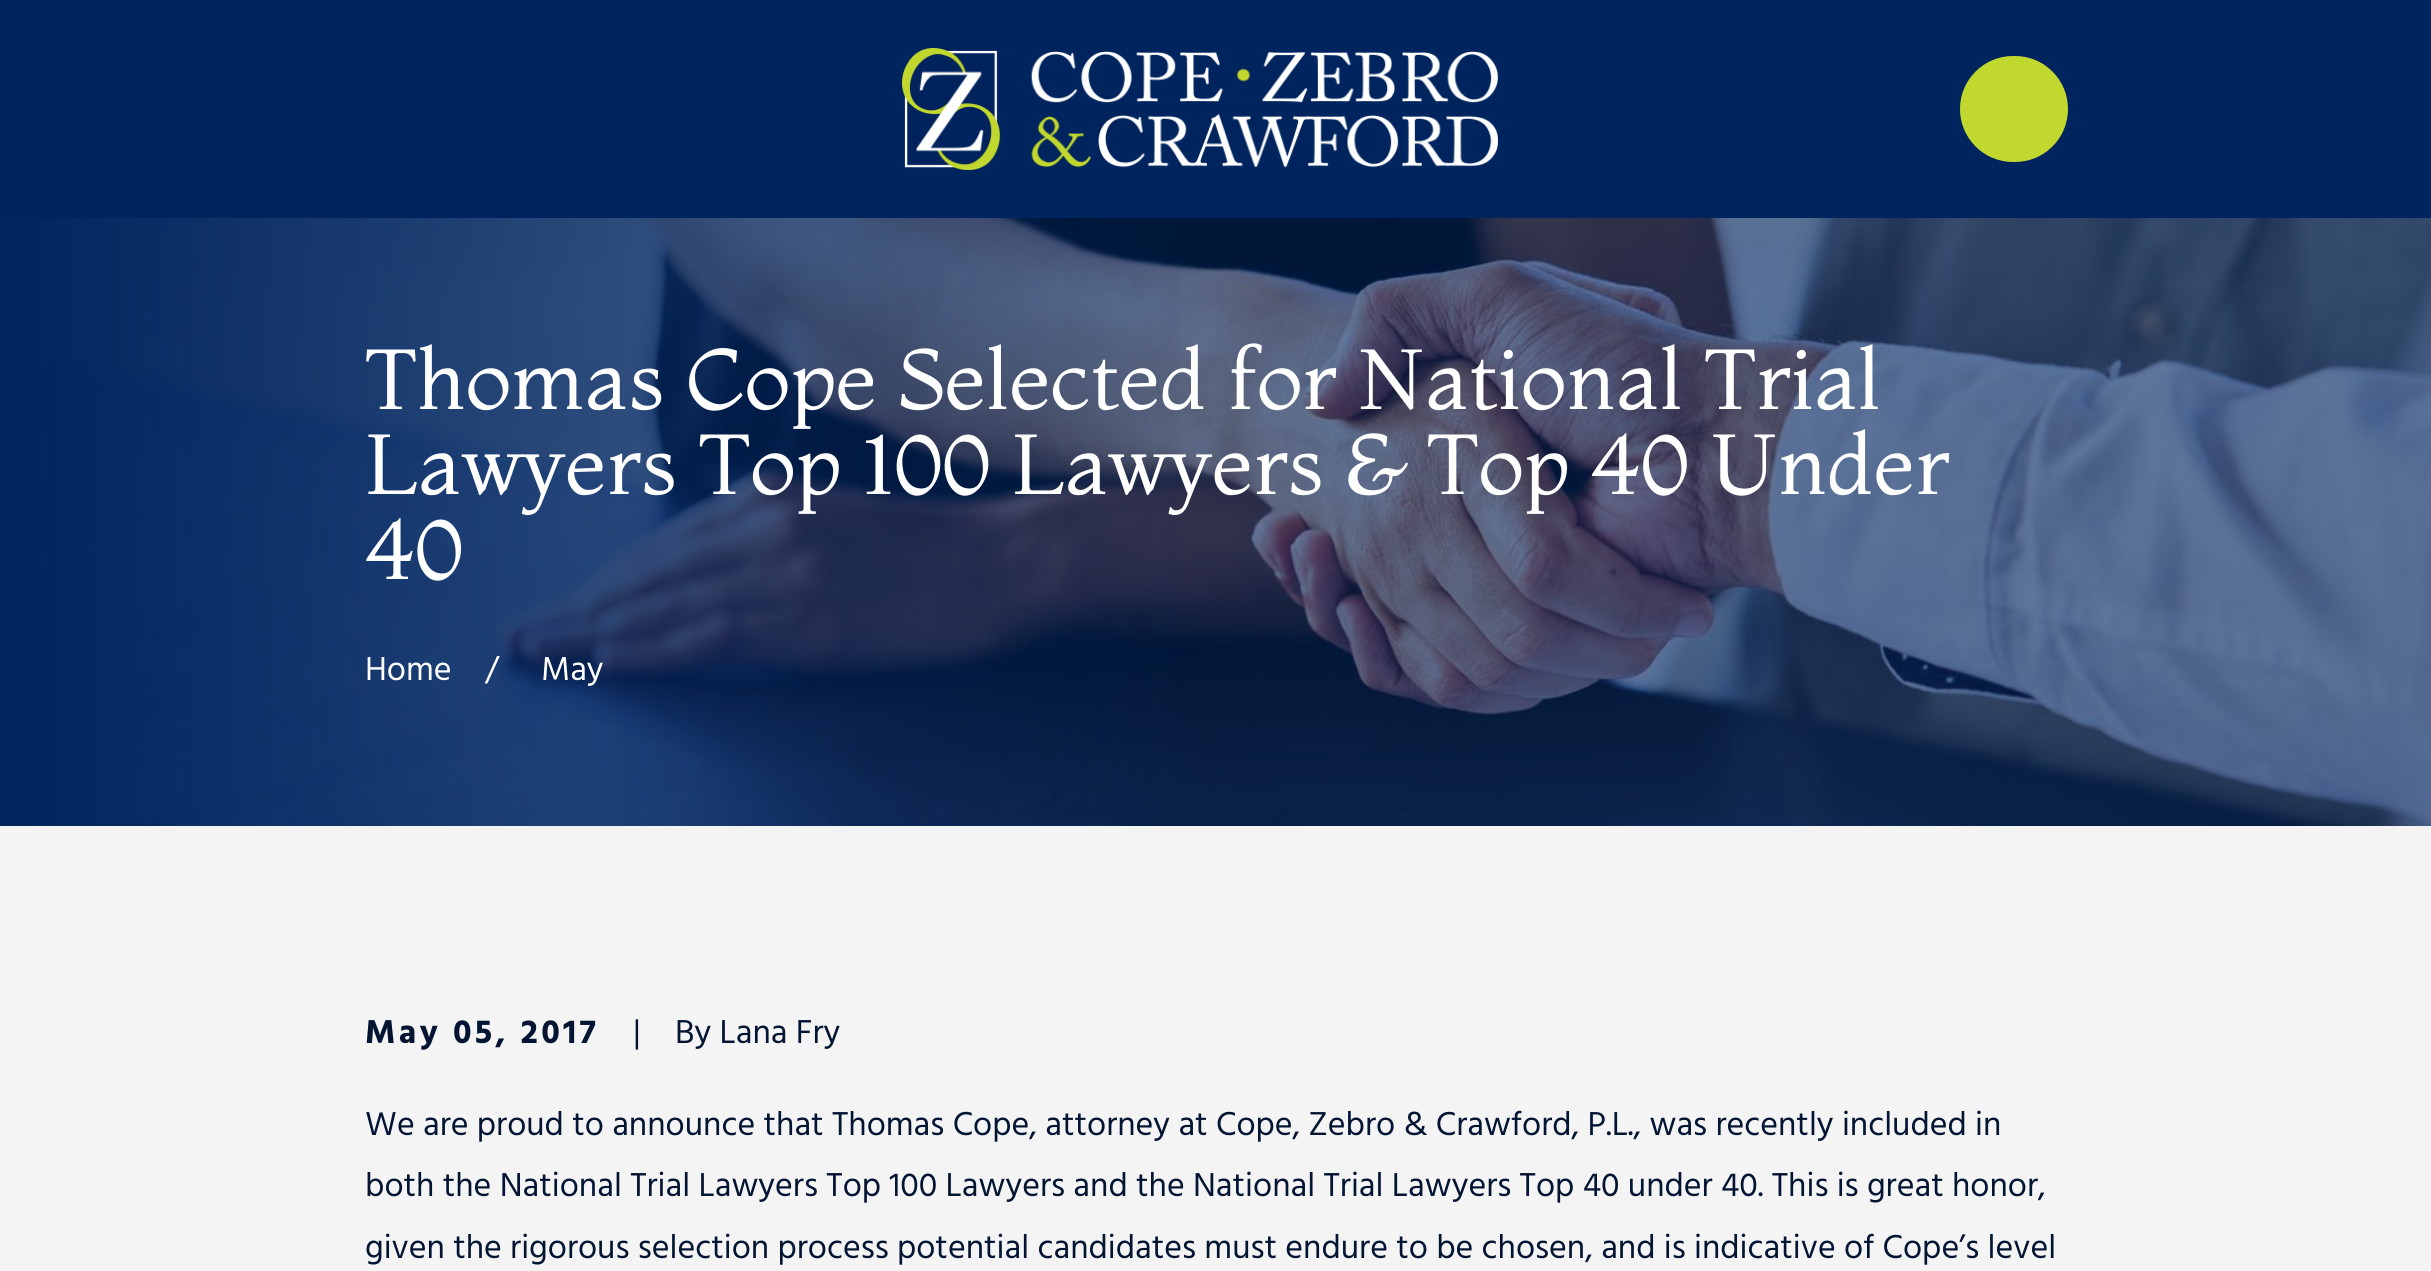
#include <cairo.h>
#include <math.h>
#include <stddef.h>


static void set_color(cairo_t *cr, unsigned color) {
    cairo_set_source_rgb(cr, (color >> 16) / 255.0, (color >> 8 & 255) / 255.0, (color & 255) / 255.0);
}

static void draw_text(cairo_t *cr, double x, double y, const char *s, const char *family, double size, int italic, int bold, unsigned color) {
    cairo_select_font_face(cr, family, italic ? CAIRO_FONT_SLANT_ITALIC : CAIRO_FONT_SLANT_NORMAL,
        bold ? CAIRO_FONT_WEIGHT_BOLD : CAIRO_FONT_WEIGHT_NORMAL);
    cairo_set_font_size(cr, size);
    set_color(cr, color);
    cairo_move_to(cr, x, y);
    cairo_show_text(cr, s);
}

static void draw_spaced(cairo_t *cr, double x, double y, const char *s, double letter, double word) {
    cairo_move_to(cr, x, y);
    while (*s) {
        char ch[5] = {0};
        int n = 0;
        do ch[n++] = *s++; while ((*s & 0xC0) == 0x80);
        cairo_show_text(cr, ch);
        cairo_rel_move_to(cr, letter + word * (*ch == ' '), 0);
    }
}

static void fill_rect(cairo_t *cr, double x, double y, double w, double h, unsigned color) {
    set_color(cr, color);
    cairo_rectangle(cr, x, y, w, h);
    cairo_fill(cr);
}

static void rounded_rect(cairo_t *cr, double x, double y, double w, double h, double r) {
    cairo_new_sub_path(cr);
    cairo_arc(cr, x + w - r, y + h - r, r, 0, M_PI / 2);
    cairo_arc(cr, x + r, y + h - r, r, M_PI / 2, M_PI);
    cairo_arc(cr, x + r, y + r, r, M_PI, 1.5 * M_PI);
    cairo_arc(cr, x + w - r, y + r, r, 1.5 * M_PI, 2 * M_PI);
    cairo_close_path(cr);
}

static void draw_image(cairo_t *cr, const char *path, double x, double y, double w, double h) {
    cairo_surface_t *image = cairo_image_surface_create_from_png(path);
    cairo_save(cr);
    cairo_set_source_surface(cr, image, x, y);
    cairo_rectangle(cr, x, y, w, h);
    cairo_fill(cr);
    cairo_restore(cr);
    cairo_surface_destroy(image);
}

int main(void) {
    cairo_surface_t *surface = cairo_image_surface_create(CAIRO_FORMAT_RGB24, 2431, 1271);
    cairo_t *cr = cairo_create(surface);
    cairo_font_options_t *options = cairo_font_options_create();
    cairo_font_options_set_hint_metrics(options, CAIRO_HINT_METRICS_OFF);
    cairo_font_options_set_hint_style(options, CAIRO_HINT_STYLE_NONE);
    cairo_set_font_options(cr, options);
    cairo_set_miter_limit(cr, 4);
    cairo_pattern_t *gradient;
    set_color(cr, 0xF4F4F4);
    cairo_paint(cr);
    fill_rect(cr, 0, 0, 2431, 218, 0x00245D);
    draw_image(cr, "assets/img1.png", 902, 48, 596, 122);
    set_color(cr, 0xC1D82F);
    rounded_rect(cr, 1960, 56, 108, 106, 53);
    cairo_fill(cr);
    fill_rect(cr, 7, 218, 2424, 608, 0x00245D);
    draw_image(cr, "assets/img2.png", 7, 218, 2424, 608);
    gradient = cairo_pattern_create_linear(0, 522, 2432, 522);
    cairo_pattern_add_color_stop_rgba(gradient, 0, 0, 0.141, 0.365, 1);
    cairo_pattern_add_color_stop_rgba(gradient, 0.5, 0, 0.141, 0.365, 0);
    cairo_pattern_add_color_stop_rgba(gradient, 1, 0, 0, 0, 0);
    cairo_set_source(cr, gradient);
    cairo_pattern_destroy(gradient);
    cairo_rectangle(cr, 0, 218, 1180, 608);
    cairo_fill(cr);
    draw_text(cr, 365, 409, "Thomas Cope Selected for National Trial", "Montaga", 85, 0, 0, 0xFFFFFF);
    draw_text(cr, 365, 494, "Lawyers Top 100 Lawyers & Top 40 Under", "Montaga", 85, 0, 0, 0xFFFFFF);
    draw_text(cr, 365, 579, "40", "Montaga", 85, 0, 0, 0xFFFFFF);
    draw_text(cr, 365, 680, "Home", "Hind", 34, 0, 0, 0xFFFFFF);
    draw_text(cr, 485, 680, "/", "Hind", 34, 0, 0, 0xFFFFFF);
    draw_text(cr, 541, 680, "May", "Hind", 34, 0, 0, 0xFFFFFF);
    cairo_select_font_face(cr, "Hind", CAIRO_FONT_SLANT_NORMAL, CAIRO_FONT_WEIGHT_BOLD);
    set_color(cr, 0x031532);
    draw_spaced(cr, 365, 1043, "May 05, 2017", 3.4, 0);
    draw_text(cr, 633, 1043, "|", "Hind", 34, 0, 0, 0x031532);
    draw_text(cr, 675, 1043, "By Lana Fry", "Hind", 34, 0, 0, 0x031532);
    draw_text(cr, 365, 1135, "We are proud to announce that Thomas Cope, attorney at Cope, Zebro & Crawford, P.L., was recently included in", "Hind", 34, 0, 0, 0x031532);
    draw_text(cr, 365, 1196, "both the National Trial Lawyers Top 100 Lawyers and the National Trial Lawyers Top 40 under 40. This is great honor,", "Hind", 34, 0, 0, 0x031532);
    draw_text(cr, 365, 1258, "given the rigorous selection process potential candidates must endure to be chosen, and is indicative of Cope’s level", "Hind", 34, 0, 0, 0x031532);
    cairo_surface_write_to_png(surface, "output.png");
    cairo_font_options_destroy(options);
    cairo_destroy(cr);
    cairo_surface_destroy(surface);
    return 0;
}
